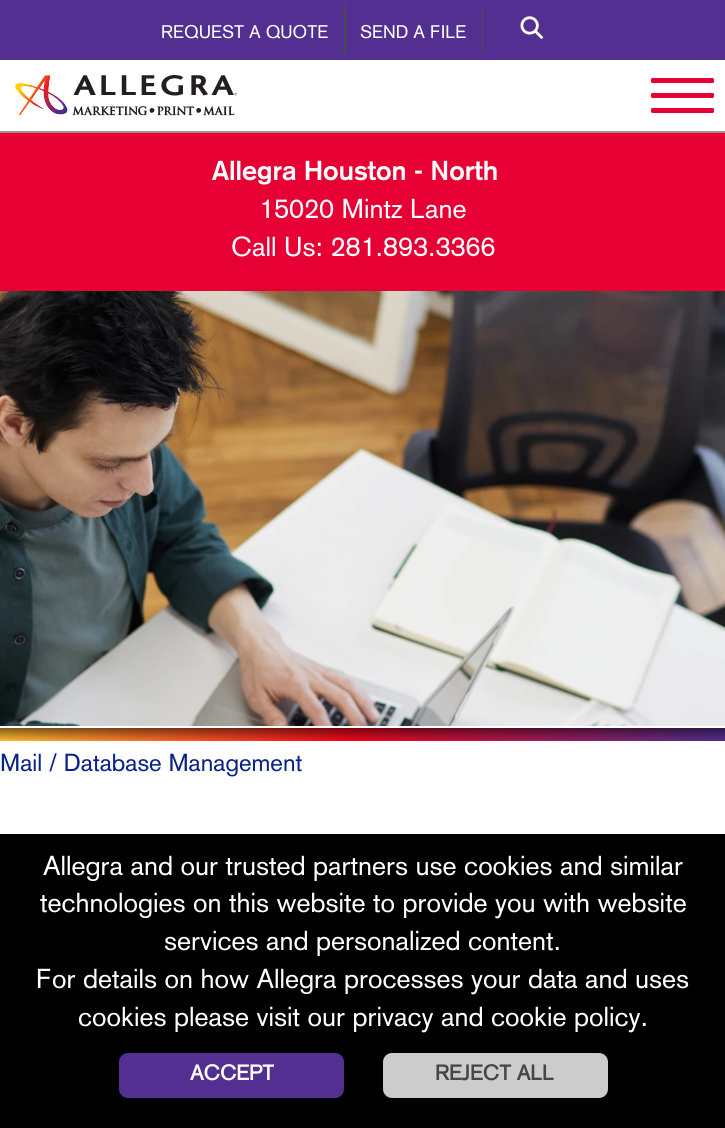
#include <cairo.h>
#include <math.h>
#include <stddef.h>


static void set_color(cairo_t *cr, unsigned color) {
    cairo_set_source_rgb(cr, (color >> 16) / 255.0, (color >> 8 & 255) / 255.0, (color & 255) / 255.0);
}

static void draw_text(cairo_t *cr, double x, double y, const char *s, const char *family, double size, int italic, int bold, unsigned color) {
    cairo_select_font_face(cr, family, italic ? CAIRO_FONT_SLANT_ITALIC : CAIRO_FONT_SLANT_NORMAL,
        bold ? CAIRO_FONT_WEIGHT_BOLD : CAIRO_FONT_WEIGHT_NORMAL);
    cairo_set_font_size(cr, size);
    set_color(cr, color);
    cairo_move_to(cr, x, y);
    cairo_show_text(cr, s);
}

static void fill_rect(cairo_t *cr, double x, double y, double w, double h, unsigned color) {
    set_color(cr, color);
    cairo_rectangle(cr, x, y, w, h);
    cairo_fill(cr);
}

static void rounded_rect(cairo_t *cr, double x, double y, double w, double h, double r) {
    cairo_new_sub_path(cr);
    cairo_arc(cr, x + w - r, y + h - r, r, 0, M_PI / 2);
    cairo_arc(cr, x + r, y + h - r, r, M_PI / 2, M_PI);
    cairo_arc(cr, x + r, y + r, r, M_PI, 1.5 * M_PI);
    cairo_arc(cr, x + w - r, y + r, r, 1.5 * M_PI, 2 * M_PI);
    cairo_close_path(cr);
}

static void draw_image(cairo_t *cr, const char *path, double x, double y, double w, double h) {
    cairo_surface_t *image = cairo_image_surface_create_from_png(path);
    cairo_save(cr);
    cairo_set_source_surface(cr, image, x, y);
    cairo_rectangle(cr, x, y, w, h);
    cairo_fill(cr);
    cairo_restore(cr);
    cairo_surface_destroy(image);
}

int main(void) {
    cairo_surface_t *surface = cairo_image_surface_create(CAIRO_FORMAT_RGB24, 725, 1128);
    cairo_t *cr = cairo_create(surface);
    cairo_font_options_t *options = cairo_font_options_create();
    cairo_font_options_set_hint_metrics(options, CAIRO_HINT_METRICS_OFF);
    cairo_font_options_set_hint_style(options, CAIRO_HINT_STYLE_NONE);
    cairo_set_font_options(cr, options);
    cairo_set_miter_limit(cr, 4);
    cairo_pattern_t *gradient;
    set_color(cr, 0xFFFFFF);
    cairo_paint(cr);
    fill_rect(cr, 0, 131, 725, 2, 0x979797);
    fill_rect(cr, 0, 0, 725, 60, 0x522F91);
    fill_rect(cr, 344, 6, 2, 48, 0x4C4C4C);
    draw_text(cr, 161, 38, "REQUEST A QUOTE", "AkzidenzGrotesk", 18, 0, 0, 0xFFFFFF);
    fill_rect(cr, 482, 6, 1, 48, 0x4C4C4C);
    draw_text(cr, 360, 38, "SEND A FILE", "AkzidenzGrotesk", 18, 0, 0, 0xFFFFFF);
    draw_image(cr, "assets/img1.png", 520, 16, 23, 23);
    draw_image(cr, "assets/img2.png", 15, 75, 222, 41);
    set_color(cr, 0xE70033);
    rounded_rect(cr, 651, 78, 63, 5, 1.5);
    cairo_fill(cr);
    rounded_rect(cr, 651, 93, 63, 5, 1.5);
    cairo_fill(cr);
    rounded_rect(cr, 651, 108, 63, 5, 1.5);
    cairo_fill(cr);
    fill_rect(cr, 0, 133, 725, 158, 0xE70033);
    draw_text(cr, 212, 180, "Allegra Houston - North", "AkzidenzGrotesk", 27, 0, 1, 0xFFFFFF);
    draw_text(cr, 259, 218, "15020 Mintz Lane", "AkzidenzGrotesk", 27, 0, 0, 0xFFFFFF);
    draw_text(cr, 231, 256, "Call Us: 281.893.3366", "AkzidenzGrotesk", 27, 0, 0, 0xFFFFFF);
    draw_image(cr, "assets/img3.png", 0, 291, 725, 435);
    gradient = cairo_pattern_create_linear(0, 734, 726, 734);
    cairo_pattern_add_color_stop_rgba(gradient, 0, 0.992, 0.729, 0.192, 1);
    cairo_pattern_add_color_stop_rgba(gradient, 0.48, 0.937, 0.024, 0.102, 1);
    cairo_pattern_add_color_stop_rgba(gradient, 1, 0.322, 0.184, 0.569, 1);
    cairo_set_source(cr, gradient);
    cairo_pattern_destroy(gradient);
    cairo_rectangle(cr, 0, 728, 725, 13);
    cairo_fill(cr);
    gradient = cairo_pattern_create_linear(363, 741, 363, 728);
    cairo_pattern_add_color_stop_rgba(gradient, 0, 0, 0, 0, 0);
    cairo_pattern_add_color_stop_rgba(gradient, 1, 0, 0, 0, 0.5);
    cairo_set_source(cr, gradient);
    cairo_pattern_destroy(gradient);
    cairo_rectangle(cr, 0, 728, 725, 12);
    cairo_fill(cr);
    draw_text(cr, 0, 771, "Mail / Database Management", "AkzidenzGrotesk", 24.25, 0, 0, 0x0A2387);
    fill_rect(cr, 0, 834, 725, 294, 0x000000);
    draw_text(cr, 43, 875, "Allegra and our trusted partners use cookies and similar", "AkzidenzGrotesk", 27, 0, 0, 0xFFFFFF);
    draw_text(cr, 40, 912, "technologies on this website to provide you with website", "AkzidenzGrotesk", 27, 0, 0, 0xFFFFFF);
    draw_text(cr, 164, 950, "services and personalized content.", "AkzidenzGrotesk", 27, 0, 0, 0xFFFFFF);
    draw_text(cr, 36, 988, "For details on how Allegra processes your data and uses", "AkzidenzGrotesk", 27, 0, 0, 0xFFFFFF);
    draw_text(cr, 78, 1026, "cookies please visit our privacy and cookie policy.", "AkzidenzGrotesk", 27, 0, 0, 0xFFFFFF);
    set_color(cr, 0x522F91);
    rounded_rect(cr, 119, 1053, 225, 45, 9);
    cairo_fill(cr);
    draw_text(cr, 190, 1080, "ACCEPT", "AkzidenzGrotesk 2", 21, 0, 1, 0xFFFFFF);
    set_color(cr, 0xCCCCCC);
    rounded_rect(cr, 383, 1053, 225, 45, 9);
    cairo_fill(cr);
    draw_text(cr, 435, 1080, "REJECT ALL", "AkzidenzGrotesk 2", 21, 0, 1, 0x464646);
    cairo_surface_write_to_png(surface, "output.png");
    cairo_font_options_destroy(options);
    cairo_destroy(cr);
    cairo_surface_destroy(surface);
    return 0;
}
